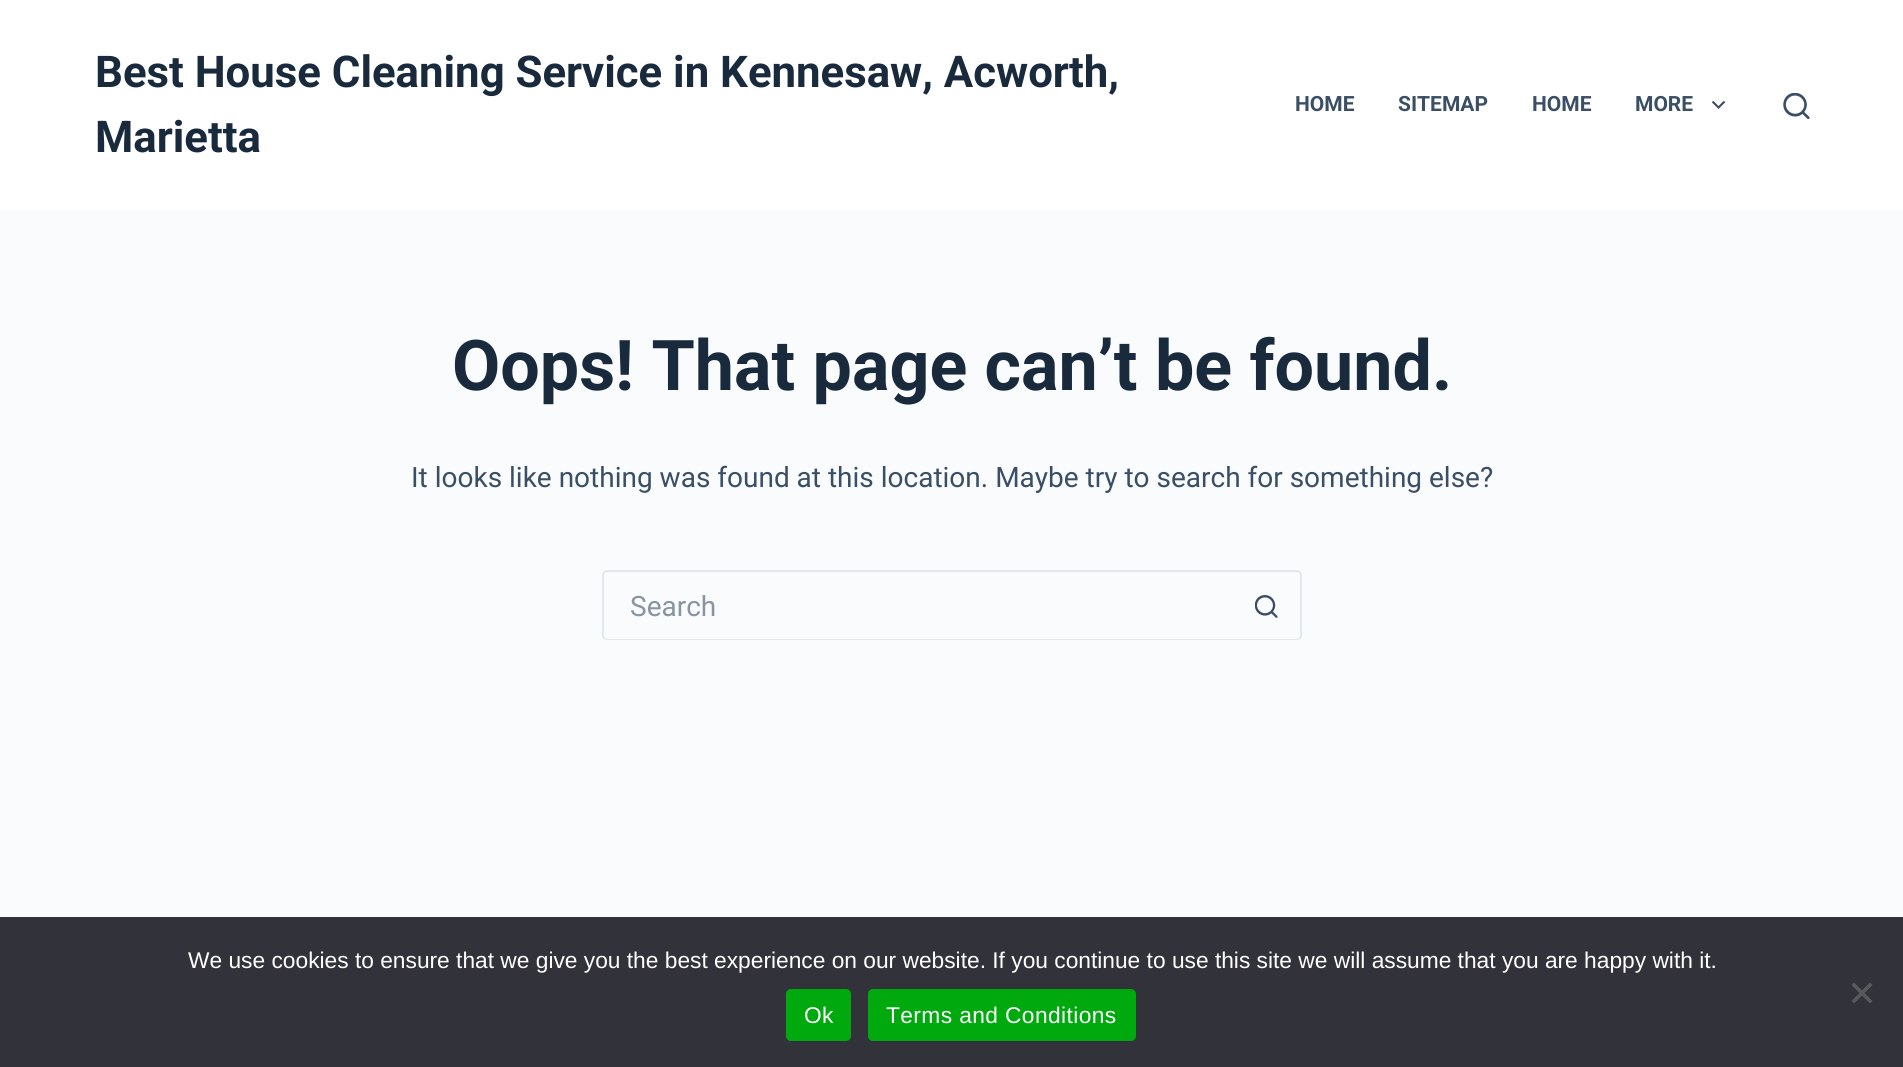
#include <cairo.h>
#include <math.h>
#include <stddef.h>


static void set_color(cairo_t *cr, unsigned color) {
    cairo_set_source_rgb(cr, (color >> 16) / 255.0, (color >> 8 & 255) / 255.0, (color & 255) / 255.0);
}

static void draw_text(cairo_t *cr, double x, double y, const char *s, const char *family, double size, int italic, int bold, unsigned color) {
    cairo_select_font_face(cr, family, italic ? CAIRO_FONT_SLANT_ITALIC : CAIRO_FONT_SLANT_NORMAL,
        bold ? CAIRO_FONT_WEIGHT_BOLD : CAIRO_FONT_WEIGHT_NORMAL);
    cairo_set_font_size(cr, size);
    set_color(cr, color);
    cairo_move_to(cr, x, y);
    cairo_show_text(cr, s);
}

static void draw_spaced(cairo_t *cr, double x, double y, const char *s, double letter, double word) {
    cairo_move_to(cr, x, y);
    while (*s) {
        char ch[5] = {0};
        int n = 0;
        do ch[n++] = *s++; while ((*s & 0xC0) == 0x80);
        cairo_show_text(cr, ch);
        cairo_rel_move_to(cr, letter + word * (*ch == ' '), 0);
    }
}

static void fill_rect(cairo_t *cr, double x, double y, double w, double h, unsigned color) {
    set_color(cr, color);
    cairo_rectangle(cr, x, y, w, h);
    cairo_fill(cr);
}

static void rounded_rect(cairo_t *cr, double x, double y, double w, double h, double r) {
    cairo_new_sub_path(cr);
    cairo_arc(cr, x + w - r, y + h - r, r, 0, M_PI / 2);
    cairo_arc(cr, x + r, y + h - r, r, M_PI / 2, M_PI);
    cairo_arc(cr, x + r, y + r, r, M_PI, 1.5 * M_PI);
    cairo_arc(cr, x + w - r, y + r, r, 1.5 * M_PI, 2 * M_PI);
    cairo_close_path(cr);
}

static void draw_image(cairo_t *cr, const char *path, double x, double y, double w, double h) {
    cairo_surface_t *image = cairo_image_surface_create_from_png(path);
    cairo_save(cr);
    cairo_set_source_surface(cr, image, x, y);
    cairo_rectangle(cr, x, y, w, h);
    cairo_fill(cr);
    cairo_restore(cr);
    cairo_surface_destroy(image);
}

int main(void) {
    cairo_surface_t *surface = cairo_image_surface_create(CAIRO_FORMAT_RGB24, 1903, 1067);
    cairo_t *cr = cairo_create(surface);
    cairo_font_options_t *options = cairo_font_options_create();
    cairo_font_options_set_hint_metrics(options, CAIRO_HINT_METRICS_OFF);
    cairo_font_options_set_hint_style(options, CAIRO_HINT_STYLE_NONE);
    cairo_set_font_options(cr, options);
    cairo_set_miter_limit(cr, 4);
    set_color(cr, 0xFAFBFC);
    cairo_paint(cr);
    fill_rect(cr, 0, 0, 1903, 210, 0xFFFFFF);
    draw_text(cr, 95, 87, "Best House Cleaning Service in Kennesaw, Acworth,", "Roboto", 43.75, 0, 1, 0x192A3D);
    draw_text(cr, 95, 152, "Marietta", "Roboto", 43.75, 0, 1, 0x192A3D);
    draw_text(cr, 1295, 111, "HOME", "Roboto", 21, 0, 1, 0x3A4F66);
    draw_text(cr, 1398, 111, "SITEMAP", "Roboto", 21, 0, 1, 0x3A4F66);
    draw_text(cr, 1532, 111, "HOME", "Roboto", 21, 0, 1, 0x3A4F66);
    draw_text(cr, 1635, 111, "MORE", "Roboto", 21, 0, 1, 0x3A4F66);
    draw_image(cr, "assets/img1.png", 1712, 101, 14, 8);
    draw_image(cr, "assets/img2.png", 1783, 93, 27, 26);
    draw_text(cr, 452, 390, "Oops! That page can’t be found.", "Roboto", 70, 0, 1, 0x192A3D);
    draw_text(cr, 411, 487, "It looks like nothing was found at this location. Maybe try to search for something else?", "Roboto", 28, 0, 0, 0x3A4F66);
    set_color(cr, 0xE1E8ED);
    cairo_set_fill_rule(cr, CAIRO_FILL_RULE_EVEN_ODD);
    cairo_new_path(cr);
    cairo_move_to(cr, 607, 570);
    cairo_line_to(cr, 1232, 570);
    cairo_line_to(cr, 1232, 640);
    cairo_line_to(cr, 607, 640);
    cairo_curve_to(cr, 604, 640, 602, 638, 602, 635);
    cairo_line_to(cr, 602, 576);
    cairo_curve_to(cr, 602, 573, 604, 570, 607, 570);
    cairo_close_path(cr);
    cairo_move_to(cr, 607, 572);
    cairo_line_to(cr, 1232, 572);
    cairo_line_to(cr, 1232, 639);
    cairo_line_to(cr, 607, 639);
    cairo_curve_to(cr, 605, 639, 604, 637, 604, 635);
    cairo_line_to(cr, 604, 576);
    cairo_curve_to(cr, 604, 574, 605, 572, 607, 572);
    cairo_close_path(cr);
    cairo_fill(cr);
    draw_text(cr, 630, 616, "Search", "Roboto", 28, 0, 0, 0x8794A2);
    set_color(cr, 0xE1E8ED);
    cairo_new_path(cr);
    cairo_move_to(cr, 1232, 570);
    cairo_line_to(cr, 1297, 570);
    cairo_curve_to(cr, 1300, 570, 1302, 573, 1302, 576);
    cairo_line_to(cr, 1302, 635);
    cairo_curve_to(cr, 1302, 638, 1300, 640, 1297, 640);
    cairo_line_to(cr, 1232, 640);
    cairo_close_path(cr);
    cairo_move_to(cr, 1232, 572);
    cairo_line_to(cr, 1297, 572);
    cairo_curve_to(cr, 1299, 572, 1300, 574, 1300, 576);
    cairo_line_to(cr, 1300, 635);
    cairo_curve_to(cr, 1300, 637, 1299, 639, 1297, 639);
    cairo_line_to(cr, 1232, 639);
    cairo_close_path(cr);
    cairo_fill(cr);
    draw_image(cr, "assets/img3.png", 1255, 595, 23, 23);
    fill_rect(cr, 0, 917, 1903, 150, 0x32323A);
    draw_text(cr, 188, 968, "We use cookies to ensure that we give you the best experience on our website. If you continue to use this site we will assume that you are happy with it.", "Liberation Sans", 22.75, 0, 0, 0xFFFFFF);
    set_color(cr, 0x59595D);
    cairo_set_fill_rule(cr, CAIRO_FILL_RULE_WINDING);
    cairo_new_path(cr);
    cairo_move_to(cr, 1870, 982.5);
    cairo_line_to(cr, 1872.5, 985);
    cairo_line_to(cr, 1854, 1003.5);
    cairo_line_to(cr, 1851.5, 1001);
    cairo_close_path(cr);
    cairo_fill(cr);
    cairo_new_path(cr);
    cairo_move_to(cr, 1851.5, 985);
    cairo_line_to(cr, 1854, 982.5);
    cairo_line_to(cr, 1872.5, 1001);
    cairo_line_to(cr, 1870, 1003.5);
    cairo_close_path(cr);
    cairo_fill(cr);
    set_color(cr, 0x00AA0E);
    rounded_rect(cr, 786, 989, 65, 52, 5);
    cairo_fill(cr);
    set_color(cr, 0xFFFFFF);
    draw_spaced(cr, 804, 1023, "Ok", 0.4, 0);
    set_color(cr, 0x00AA0E);
    rounded_rect(cr, 868, 989, 268, 52, 5);
    cairo_fill(cr);
    set_color(cr, 0xFFFFFF);
    draw_spaced(cr, 886, 1023, "Terms and Conditions", 0.4, 0);
    cairo_surface_write_to_png(surface, "output.png");
    cairo_font_options_destroy(options);
    cairo_destroy(cr);
    cairo_surface_destroy(surface);
    return 0;
}
